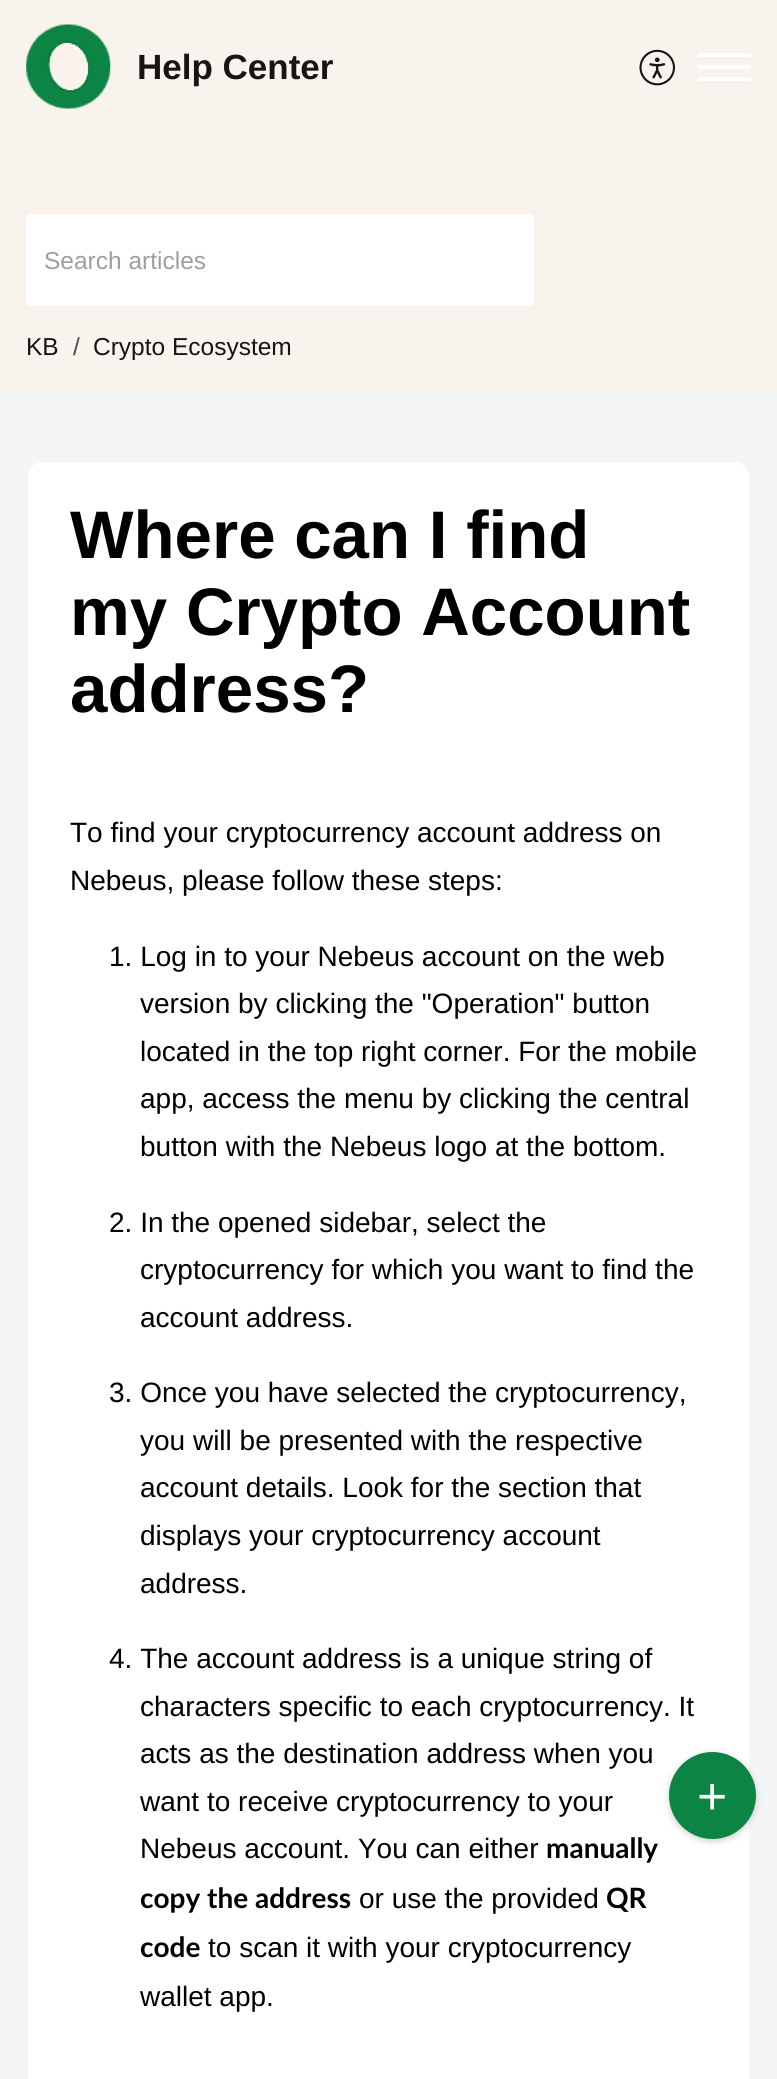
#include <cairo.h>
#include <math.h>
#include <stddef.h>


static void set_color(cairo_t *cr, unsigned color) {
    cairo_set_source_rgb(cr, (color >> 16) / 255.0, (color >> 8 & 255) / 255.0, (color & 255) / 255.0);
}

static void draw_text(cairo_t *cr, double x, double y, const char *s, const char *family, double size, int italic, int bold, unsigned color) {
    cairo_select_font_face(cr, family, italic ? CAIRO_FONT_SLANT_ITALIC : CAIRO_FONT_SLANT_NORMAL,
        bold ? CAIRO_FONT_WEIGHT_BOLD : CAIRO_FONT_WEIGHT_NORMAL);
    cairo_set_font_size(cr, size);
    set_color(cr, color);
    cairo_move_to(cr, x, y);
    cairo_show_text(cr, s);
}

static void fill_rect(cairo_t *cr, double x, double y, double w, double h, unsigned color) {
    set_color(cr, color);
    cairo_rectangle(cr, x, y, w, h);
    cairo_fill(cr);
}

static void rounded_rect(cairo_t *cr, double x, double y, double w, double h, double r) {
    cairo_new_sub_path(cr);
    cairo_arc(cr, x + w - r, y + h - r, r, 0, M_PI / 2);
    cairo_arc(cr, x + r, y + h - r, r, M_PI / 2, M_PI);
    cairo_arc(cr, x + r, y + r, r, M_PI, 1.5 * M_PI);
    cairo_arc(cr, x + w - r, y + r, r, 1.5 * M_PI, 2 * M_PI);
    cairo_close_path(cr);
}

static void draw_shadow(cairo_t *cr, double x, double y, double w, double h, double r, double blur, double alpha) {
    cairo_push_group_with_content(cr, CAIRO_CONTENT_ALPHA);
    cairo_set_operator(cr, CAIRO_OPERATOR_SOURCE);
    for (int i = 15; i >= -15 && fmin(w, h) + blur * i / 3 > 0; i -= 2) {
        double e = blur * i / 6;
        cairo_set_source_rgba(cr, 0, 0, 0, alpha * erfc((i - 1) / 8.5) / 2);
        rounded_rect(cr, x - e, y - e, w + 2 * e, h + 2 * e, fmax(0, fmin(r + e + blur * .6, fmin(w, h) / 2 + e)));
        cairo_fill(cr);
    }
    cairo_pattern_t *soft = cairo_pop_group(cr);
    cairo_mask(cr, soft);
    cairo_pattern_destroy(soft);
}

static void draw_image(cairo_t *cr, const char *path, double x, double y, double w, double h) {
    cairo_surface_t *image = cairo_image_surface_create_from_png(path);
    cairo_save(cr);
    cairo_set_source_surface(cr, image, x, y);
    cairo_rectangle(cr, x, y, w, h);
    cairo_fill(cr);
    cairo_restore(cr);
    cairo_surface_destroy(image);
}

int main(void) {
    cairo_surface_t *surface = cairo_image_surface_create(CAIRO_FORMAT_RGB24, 777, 2079);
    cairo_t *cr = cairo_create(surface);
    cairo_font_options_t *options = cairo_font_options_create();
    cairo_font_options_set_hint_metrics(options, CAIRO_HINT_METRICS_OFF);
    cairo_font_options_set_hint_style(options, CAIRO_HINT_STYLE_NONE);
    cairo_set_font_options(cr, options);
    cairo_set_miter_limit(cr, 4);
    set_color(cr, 0xF3F5F7);
    cairo_paint(cr);
    fill_rect(cr, 0, 0, 777, 392, 0xF8F3EC);
    draw_image(cr, "assets/img1.png", 26, 24, 85, 85);
    draw_text(cr, 137, 79, "Help Center", "Liberation Sans", 35, 0, 1, 0x151515);
    draw_image(cr, "assets/img2.png", 639, 49, 36, 37);
    fill_rect(cr, 698, 65, 53, 4, 0xFFFFFF);
    fill_rect(cr, 698, 53, 53, 4, 0xFFFFFF);
    fill_rect(cr, 698, 77, 53, 4, 0xFFFFFF);
    rounded_rect(cr, 26, 214, 508, 92, 5);
    cairo_fill(cr);
    draw_text(cr, 44, 269, "Search articles", "Liberation Sans", 24.5, 0, 0, 0x9E9E9E);
    set_color(cr, 0xFFFFFF);
    cairo_new_path(cr);
    cairo_move_to(cr, 42, 462);
    cairo_line_to(cr, 735, 462);
    cairo_curve_to(cr, 742.5, 462, 749, 468.5, 749, 476);
    cairo_line_to(cr, 749, 2079);
    cairo_line_to(cr, 28, 2079);
    cairo_line_to(cr, 28, 476);
    cairo_curve_to(cr, 28, 468.5, 34.5, 462, 42, 462);
    cairo_close_path(cr);
    cairo_fill(cr);
    set_color(cr, 0x000000);
    draw_shadow(cr, 669, 1754, 87, 87, 43.5, 3.5, 0.2);
    set_color(cr, 0x0C8444);
    cairo_arc(cr, 712.5, 1795.5, 43.5, 0, 2 * M_PI);
    cairo_fill(cr);
    draw_text(cr, 697, 1814, "+", "Liberation Sans", 52, 0, 0, 0xFFFFFF);
    draw_text(cr, 26, 355, "KB", "Liberation Sans", 24.5, 0, 0, 0x151515);
    draw_text(cr, 73, 355, "/", "Liberation Sans", 24.5, 0, 0, 0x4B4B4B);
    draw_text(cr, 93, 355, "Crypto Ecosystem", "Liberation Sans", 24.5, 0, 0, 0x151515);
    draw_text(cr, 70, 558, "Where can I find", "Liberation Sans", 67.25, 0, 1, 0x000000);
    draw_text(cr, 70, 635, "my Crypto Account", "Liberation Sans", 67.25, 0, 1, 0x000000);
    draw_text(cr, 70, 712, "address?", "Liberation Sans", 67.25, 0, 1, 0x000000);
    draw_text(cr, 70, 842, "To find your cryptocurrency account address on", "Liberation Sans", 28, 0, 0, 0x000000);
    draw_text(cr, 70, 890, "Nebeus, please follow these steps:", "Liberation Sans", 28, 0, 0, 0x000000);
    draw_text(cr, 109, 966, "1. Log in to your Nebeus account on the web", "Liberation Sans", 28, 0, 0, 0x000000);
    draw_text(cr, 140, 1013, "version by clicking the \"Operation\" button", "Liberation Sans", 28, 0, 0, 0x000000);
    draw_text(cr, 140, 1061, "located in the top right corner. For the mobile", "Liberation Sans", 28, 0, 0, 0x000000);
    draw_text(cr, 140, 1108, "app, access the menu by clicking the central", "Liberation Sans", 28, 0, 0, 0x000000);
    draw_text(cr, 140, 1156, "button with the Nebeus logo at the bottom.", "Liberation Sans", 28, 0, 0, 0x000000);
    draw_text(cr, 109, 1232, "2. In the opened sidebar, select the", "Liberation Sans", 28, 0, 0, 0x000000);
    draw_text(cr, 140, 1279, "cryptocurrency for which you want to find the", "Liberation Sans", 28, 0, 0, 0x000000);
    draw_text(cr, 140, 1327, "account address.", "Liberation Sans", 28, 0, 0, 0x000000);
    draw_text(cr, 109, 1402, "3. Once you have selected the cryptocurrency,", "Liberation Sans", 28, 0, 0, 0x000000);
    draw_text(cr, 140, 1450, "you will be presented with the respective", "Liberation Sans", 28, 0, 0, 0x000000);
    draw_text(cr, 140, 1497, "account details. Look for the section that", "Liberation Sans", 28, 0, 0, 0x000000);
    draw_text(cr, 140, 1545, "displays your cryptocurrency account", "Liberation Sans", 28, 0, 0, 0x000000);
    draw_text(cr, 140, 1593, "address.", "Liberation Sans", 28, 0, 0, 0x000000);
    draw_text(cr, 109, 1668, "4. The account address is a unique string of", "Liberation Sans", 28, 0, 0, 0x000000);
    draw_text(cr, 140, 1716, "characters specific to each cryptocurrency. It", "Liberation Sans", 28, 0, 0, 0x000000);
    draw_text(cr, 140, 1763, "acts as the destination address when you", "Liberation Sans", 28, 0, 0, 0x000000);
    draw_text(cr, 140, 1811, "want to receive cryptocurrency to your", "Liberation Sans", 28, 0, 0, 0x000000);
    draw_text(cr, 140, 1858, "Nebeus account. You can either", "Liberation Sans", 28, 0, 0, 0x000000);
    draw_text(cr, 546, 1858, "manually", "Lato", 28, 0, 1, 0x000000);
    draw_text(cr, 140, 1908, "copy the address", "Lato", 28, 0, 1, 0x000000);
    draw_text(cr, 359, 1908, "or use the provided", "Liberation Sans", 28, 0, 0, 0x000000);
    draw_text(cr, 606, 1908, "QR", "Lato", 28, 0, 1, 0x000000);
    draw_text(cr, 140, 1957, "code", "Lato", 28, 0, 1, 0x000000);
    draw_text(cr, 208, 1957, "to scan it with your cryptocurrency", "Liberation Sans", 28, 0, 0, 0x000000);
    draw_text(cr, 140, 2006, "wallet app.", "Liberation Sans", 28, 0, 0, 0x000000);
    cairo_surface_write_to_png(surface, "output.png");
    cairo_font_options_destroy(options);
    cairo_destroy(cr);
    cairo_surface_destroy(surface);
    return 0;
}
